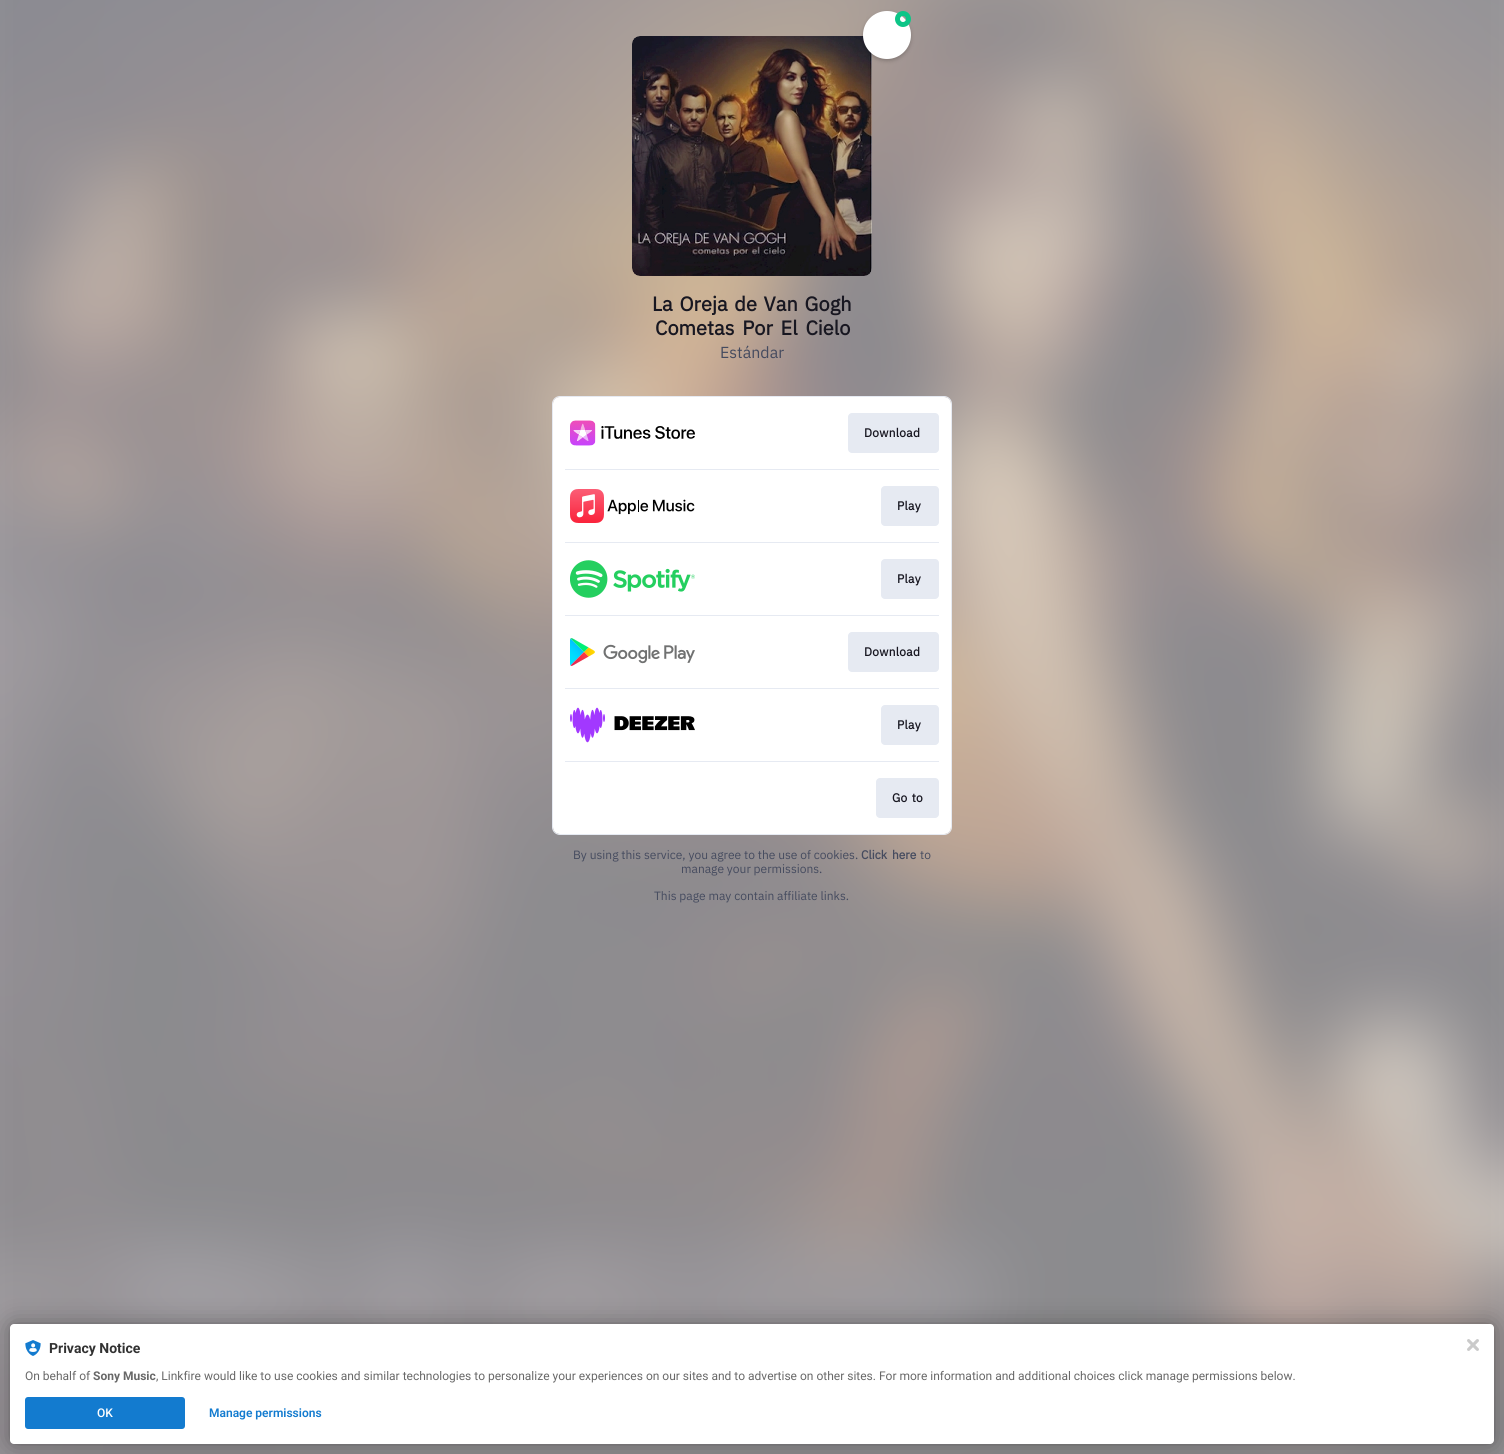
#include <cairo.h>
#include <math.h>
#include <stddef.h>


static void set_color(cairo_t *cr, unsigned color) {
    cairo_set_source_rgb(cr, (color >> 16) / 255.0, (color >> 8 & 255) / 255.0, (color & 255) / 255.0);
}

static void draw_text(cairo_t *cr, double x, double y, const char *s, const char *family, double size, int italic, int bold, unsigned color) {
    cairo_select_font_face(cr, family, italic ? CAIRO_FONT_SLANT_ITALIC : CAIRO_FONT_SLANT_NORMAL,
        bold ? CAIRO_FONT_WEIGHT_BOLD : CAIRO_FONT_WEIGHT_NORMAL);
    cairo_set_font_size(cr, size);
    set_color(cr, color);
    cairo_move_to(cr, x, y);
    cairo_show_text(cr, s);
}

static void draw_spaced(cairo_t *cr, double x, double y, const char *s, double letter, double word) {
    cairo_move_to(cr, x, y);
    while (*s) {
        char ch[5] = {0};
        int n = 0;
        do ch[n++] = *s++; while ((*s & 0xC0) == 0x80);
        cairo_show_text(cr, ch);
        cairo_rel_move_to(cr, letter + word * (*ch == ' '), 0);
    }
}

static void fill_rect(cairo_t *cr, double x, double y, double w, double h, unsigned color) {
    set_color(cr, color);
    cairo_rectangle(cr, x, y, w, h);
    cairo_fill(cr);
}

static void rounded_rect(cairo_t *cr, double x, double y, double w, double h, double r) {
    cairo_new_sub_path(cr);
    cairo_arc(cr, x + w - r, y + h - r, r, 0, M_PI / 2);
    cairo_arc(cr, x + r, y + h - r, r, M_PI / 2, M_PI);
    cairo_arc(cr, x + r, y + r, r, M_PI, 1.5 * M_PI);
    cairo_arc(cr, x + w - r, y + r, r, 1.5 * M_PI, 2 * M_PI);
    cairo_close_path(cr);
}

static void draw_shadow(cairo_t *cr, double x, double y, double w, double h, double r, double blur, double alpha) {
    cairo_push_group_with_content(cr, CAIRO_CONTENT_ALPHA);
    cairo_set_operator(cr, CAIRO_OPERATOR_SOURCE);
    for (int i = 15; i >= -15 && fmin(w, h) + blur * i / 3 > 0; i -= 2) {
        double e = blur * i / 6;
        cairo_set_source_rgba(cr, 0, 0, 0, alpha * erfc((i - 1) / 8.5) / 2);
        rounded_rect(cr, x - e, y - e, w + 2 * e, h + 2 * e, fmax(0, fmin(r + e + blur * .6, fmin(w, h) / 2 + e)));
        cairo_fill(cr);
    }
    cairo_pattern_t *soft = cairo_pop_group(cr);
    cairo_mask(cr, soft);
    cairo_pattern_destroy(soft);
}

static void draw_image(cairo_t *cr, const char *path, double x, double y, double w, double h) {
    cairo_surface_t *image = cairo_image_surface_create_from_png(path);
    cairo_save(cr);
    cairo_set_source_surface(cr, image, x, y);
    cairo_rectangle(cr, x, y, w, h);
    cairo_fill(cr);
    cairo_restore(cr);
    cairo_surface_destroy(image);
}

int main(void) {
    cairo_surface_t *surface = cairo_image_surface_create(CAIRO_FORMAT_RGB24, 1504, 1454);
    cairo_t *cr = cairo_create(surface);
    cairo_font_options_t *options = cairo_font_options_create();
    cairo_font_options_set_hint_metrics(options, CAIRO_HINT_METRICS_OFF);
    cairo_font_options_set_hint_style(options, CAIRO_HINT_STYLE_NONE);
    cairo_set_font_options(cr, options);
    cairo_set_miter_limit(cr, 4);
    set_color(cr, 0xFFFFFF);
    cairo_paint(cr);
    draw_image(cr, "assets/img1.png", 0, 0, 1504, 1454);
    draw_image(cr, "assets/img2.png", 632, 36, 240, 240);
    set_color(cr, 0x000000);
    draw_shadow(cr, 863, 13, 48, 48, 24, 2, 0.2);
    set_color(cr, 0xFFFFFF);
    cairo_arc(cr, 887, 35, 24, 0, 2 * M_PI);
    cairo_fill(cr);
    cairo_arc(cr, 903, 19, 5.5, 0, 2 * M_PI);
    set_color(cr, 0x0DC587);
    cairo_set_line_width(cr, 5);
    cairo_stroke(cr);
    draw_text(cr, 642, 80, "L", "IBM Plex Sans", 12, 0, 0, 0x422D2B);
    cairo_select_font_face(cr, "IBM Plex Sans", CAIRO_FONT_SLANT_NORMAL, CAIRO_FONT_WEIGHT_BOLD);
    cairo_set_font_size(cr, 20);
    set_color(cr, 0x181721);
    draw_spaced(cr, 652, 311, "La Oreja de Van Gogh", 0, 2);
    draw_spaced(cr, 655, 335, "Cometas Por El Cielo", 0, 3);
    draw_text(cr, 720, 358, "Estándar", "IBM Plex Sans", 16, 0, 0, 0x454B5F);
    rounded_rect(cr, 552.5, 396.5, 399, 438, 7.5);
    set_color(cr, 0xE6EAF2);
    cairo_set_line_width(cr, 1);
    cairo_stroke(cr);
    set_color(cr, 0xFFFFFF);
    rounded_rect(cr, 553, 397, 398, 437, 7);
    cairo_fill(cr);
    draw_image(cr, "assets/img3.png", 570, 420, 125, 26);
    set_color(cr, 0xE6EAF2);
    rounded_rect(cr, 848, 413, 91, 40, 4);
    cairo_fill(cr);
    cairo_select_font_face(cr, "IBM Plex Sans", CAIRO_FONT_SLANT_NORMAL, CAIRO_FONT_WEIGHT_BOLD);
    cairo_set_font_size(cr, 12);
    set_color(cr, 0x181721);
    draw_spaced(cr, 864, 437, "Download", 0.25, 0);
    fill_rect(cr, 565, 469, 374, 1, 0xE6EAF2);
    draw_image(cr, "assets/img4.png", 570, 489, 125, 34);
    rounded_rect(cr, 881, 486, 58, 40, 4);
    cairo_fill(cr);
    set_color(cr, 0x181721);
    draw_spaced(cr, 897, 510, "Play", 0.25, 0);
    fill_rect(cr, 565, 542, 374, 1, 0xE6EAF2);
    draw_image(cr, "assets/img5.png", 570, 560, 125, 38);
    rounded_rect(cr, 881, 559, 58, 40, 4);
    cairo_fill(cr);
    set_color(cr, 0x181721);
    draw_spaced(cr, 897, 583, "Play", 0.25, 0);
    fill_rect(cr, 565, 615, 374, 1, 0xE6EAF2);
    draw_image(cr, "assets/img6.png", 570, 638, 125, 28);
    rounded_rect(cr, 848, 632, 91, 40, 4);
    cairo_fill(cr);
    set_color(cr, 0x181721);
    draw_spaced(cr, 864, 656, "Download", 0.25, 0);
    fill_rect(cr, 565, 688, 374, 1, 0xE6EAF2);
    draw_image(cr, "assets/img7.png", 570, 707, 125, 36);
    rounded_rect(cr, 881, 705, 58, 40, 4);
    cairo_fill(cr);
    set_color(cr, 0x181721);
    draw_spaced(cr, 897, 729, "Play", 0.25, 0);
    fill_rect(cr, 565, 761, 374, 1, 0xE6EAF2);
    rounded_rect(cr, 876, 778, 63, 40, 4);
    cairo_fill(cr);
    set_color(cr, 0x181721);
    draw_spaced(cr, 892, 802, "Go to", 0.25, 1);
    draw_text(cr, 573, 859, "By using this service, you agree to the use of cookies.", "IBM Plex Sans", 12, 0, 0, 0x454B5F);
    cairo_select_font_face(cr, "IBM Plex Sans", CAIRO_FONT_SLANT_NORMAL, CAIRO_FONT_WEIGHT_BOLD);
    draw_spaced(cr, 861, 859, "Click here", 0, 2);
    draw_text(cr, 920, 859, "to", "IBM Plex Sans", 12, 0, 0, 0x454B5F);
    draw_text(cr, 681, 873, "manage your permissions.", "IBM Plex Sans", 12, 0, 0, 0x454B5F);
    draw_text(cr, 654, 900, "This page may contain affiliate links.", "IBM Plex Sans", 12, 0, 0, 0x454B5F);
    set_color(cr, 0x000000);
    draw_shadow(cr, 10, 1324, 1484, 120, 4, 2, 0.12);
    draw_shadow(cr, 10, 1324, 1484, 120, 4, 12, 0.3);
    set_color(cr, 0xFFFFFF);
    rounded_rect(cr, 10, 1324, 1484, 120, 4);
    cairo_fill(cr);
    draw_image(cr, "assets/img8.png", 25, 1340, 16, 16);
    draw_text(cr, 49, 1353, "Privacy Notice", "Roboto", 14, 0, 1, 0x323232);
    draw_text(cr, 25, 1380, "On behalf of", "Roboto", 12, 0, 0, 0x686868);
    draw_text(cr, 93, 1380, "Sony Music", "Roboto", 12, 0, 1, 0x686868);
    draw_text(cr, 156, 1380, ", Linkfire would like to use cookies and similar technologies to personalize your experiences on our sites and to advertise on other sites. For more information and additional choices click manage permissions below.", "Roboto", 12, 0, 0, 0x686868);
    set_color(cr, 0x137BCF);
    rounded_rect(cr, 25, 1397, 160, 32, 3);
    cairo_fill(cr);
    draw_text(cr, 97, 1417, "OK", "Roboto Medium", 12, 0, 0, 0xFFFFFF);
    draw_text(cr, 209, 1417, "Manage permissions", "Roboto SemiBold", 12, 0, 0, 0x137BCF);
    draw_image(cr, "assets/img9.png", 1467, 1339, 12, 12);
    cairo_surface_write_to_png(surface, "output.png");
    cairo_font_options_destroy(options);
    cairo_destroy(cr);
    cairo_surface_destroy(surface);
    return 0;
}
